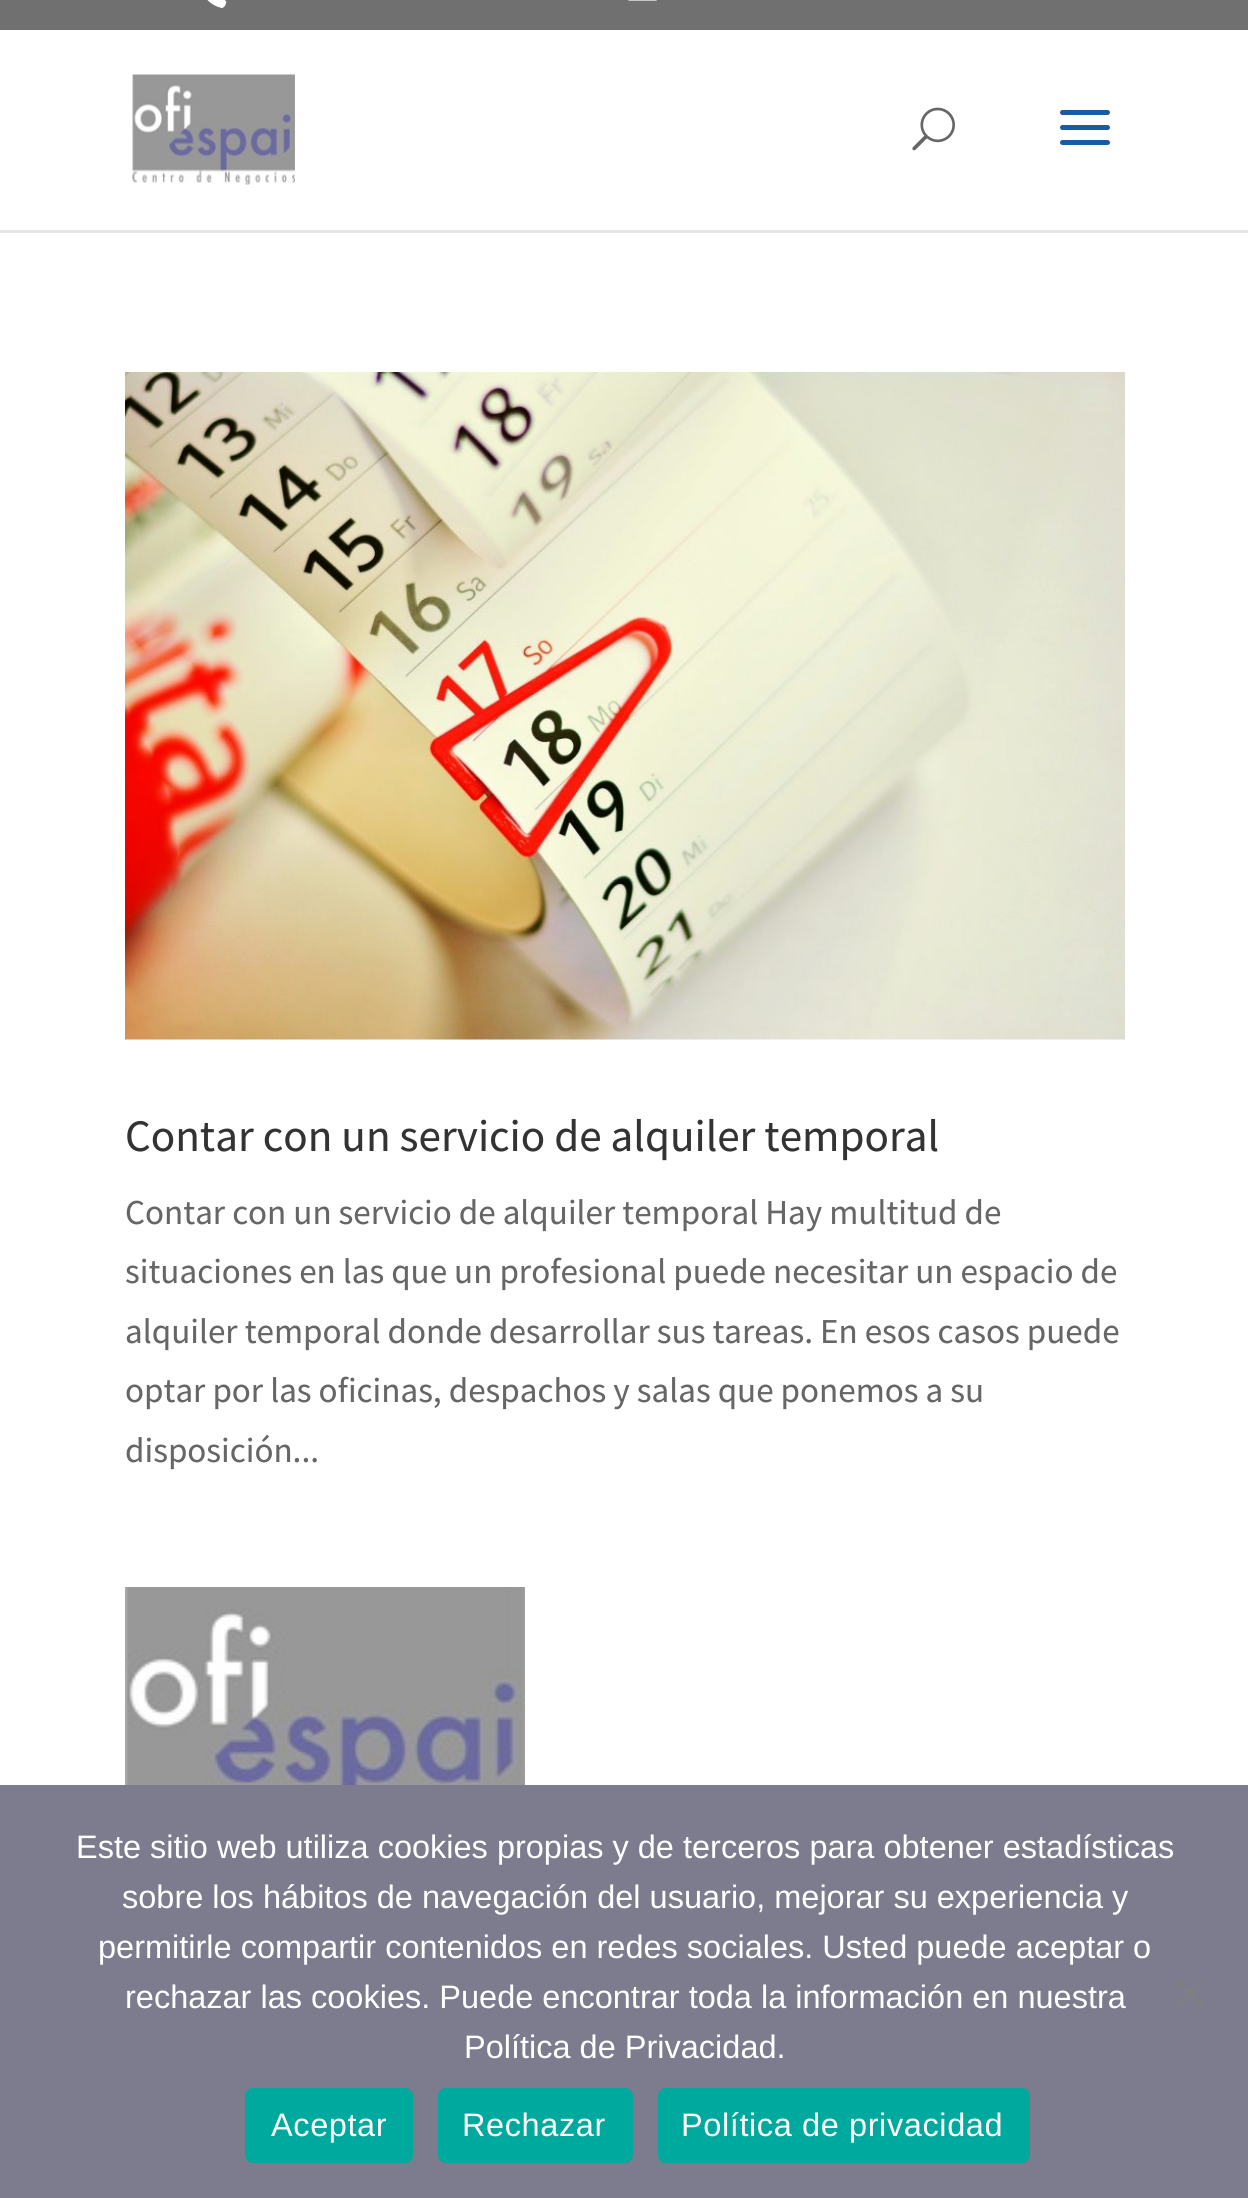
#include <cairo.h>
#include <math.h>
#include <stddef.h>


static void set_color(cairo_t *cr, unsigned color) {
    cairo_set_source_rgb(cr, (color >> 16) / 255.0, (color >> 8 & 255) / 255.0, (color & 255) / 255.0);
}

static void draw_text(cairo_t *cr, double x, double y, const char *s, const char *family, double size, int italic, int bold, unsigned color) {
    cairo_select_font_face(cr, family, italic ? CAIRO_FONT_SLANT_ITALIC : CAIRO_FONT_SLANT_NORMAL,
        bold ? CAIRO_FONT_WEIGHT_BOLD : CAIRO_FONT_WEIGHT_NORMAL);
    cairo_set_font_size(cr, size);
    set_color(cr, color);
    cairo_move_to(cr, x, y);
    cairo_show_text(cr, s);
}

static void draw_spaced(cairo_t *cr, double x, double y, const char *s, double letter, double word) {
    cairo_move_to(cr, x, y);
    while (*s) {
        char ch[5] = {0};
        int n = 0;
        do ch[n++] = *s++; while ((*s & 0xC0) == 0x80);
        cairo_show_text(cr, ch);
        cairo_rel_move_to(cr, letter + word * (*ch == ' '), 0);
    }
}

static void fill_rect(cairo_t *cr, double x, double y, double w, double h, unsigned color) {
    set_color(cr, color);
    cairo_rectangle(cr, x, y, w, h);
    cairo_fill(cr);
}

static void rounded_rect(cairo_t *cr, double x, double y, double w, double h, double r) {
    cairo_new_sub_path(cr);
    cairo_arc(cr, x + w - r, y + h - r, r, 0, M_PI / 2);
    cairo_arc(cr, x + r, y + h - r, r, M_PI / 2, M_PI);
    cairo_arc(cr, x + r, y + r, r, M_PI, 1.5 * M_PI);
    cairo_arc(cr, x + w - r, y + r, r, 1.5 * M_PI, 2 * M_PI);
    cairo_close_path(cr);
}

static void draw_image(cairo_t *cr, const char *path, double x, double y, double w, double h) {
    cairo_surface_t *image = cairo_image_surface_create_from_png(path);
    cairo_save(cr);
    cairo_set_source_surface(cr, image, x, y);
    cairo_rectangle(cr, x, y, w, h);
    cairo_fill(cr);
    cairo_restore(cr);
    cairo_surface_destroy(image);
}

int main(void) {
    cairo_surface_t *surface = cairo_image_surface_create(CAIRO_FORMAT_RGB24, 1248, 2198);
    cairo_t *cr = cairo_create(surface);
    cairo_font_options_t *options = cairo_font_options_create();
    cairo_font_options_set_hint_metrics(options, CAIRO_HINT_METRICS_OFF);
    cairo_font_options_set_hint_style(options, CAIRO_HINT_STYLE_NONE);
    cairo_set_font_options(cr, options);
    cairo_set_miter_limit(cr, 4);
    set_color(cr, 0xFFFFFF);
    cairo_paint(cr);
    fill_rect(cr, 0, 0, 1248, 30, 0x707070);
    draw_image(cr, "assets/img1.png", 207, 0, 20, 9);
    draw_image(cr, "assets/img2.png", 628, 0, 29, 1);
    fill_rect(cr, 0, 230, 1248, 3, 0xE6E6E6);
    draw_image(cr, "assets/img3.png", 132, 74, 163, 111);
    draw_image(cr, "assets/img4.png", 912, 107, 43, 44);
    draw_image(cr, "assets/img5.png", 1060, 110, 50, 35);
    draw_image(cr, "assets/img6.png", 125, 372, 1000, 668);
    draw_text(cr, 125, 1151, "Contar con un servicio de alquiler temporal", "Assistant Medium", 45, 0, 0, 0x333333);
    draw_text(cr, 125, 1224, "Contar con un servicio de alquiler temporal Hay multitud de", "Assistant Medium", 35, 0, 0, 0x666666);
    draw_text(cr, 125, 1283, "situaciones en las que un profesional puede necesitar un espacio de", "Assistant Medium", 35, 0, 0, 0x666666);
    draw_text(cr, 125, 1343, "alquiler temporal donde desarrollar sus tareas. En esos casos puede", "Assistant Medium", 35, 0, 0, 0x666666);
    draw_text(cr, 125, 1402, "optar por las oficinas, despachos y salas que ponemos a su", "Assistant Medium", 35, 0, 0, 0x666666);
    draw_text(cr, 125, 1462, "disposición...", "Assistant Medium", 35, 0, 0, 0x666666);
    draw_image(cr, "assets/img7.png", 125, 1587, 400, 198);
    fill_rect(cr, 0, 1785, 1248, 413, 0x7C7C8E);
    draw_text(cr, 76, 1858, "Este sitio web utiliza cookies propias y de terceros para obtener estadísticas", "Liberation Sans", 32.5, 0, 0, 0xFFFFFF);
    draw_text(cr, 122, 1908, "sobre los hábitos de navegación del usuario, mejorar su experiencia y", "Liberation Sans", 32.5, 0, 0, 0xFFFFFF);
    draw_text(cr, 98, 1958, "permitirle compartir contenidos en redes sociales. Usted puede aceptar o", "Liberation Sans", 32.5, 0, 0, 0xFFFFFF);
    draw_text(cr, 125, 2008, "rechazar las cookies. Puede encontrar toda la información en nuestra", "Liberation Sans", 32.5, 0, 0, 0xFFFFFF);
    draw_text(cr, 464, 2058, "Política de Privacidad.", "Liberation Sans", 32.5, 0, 0, 0xFFFFFF);
    set_color(cr, 0x7E7E87);
    cairo_new_path(cr);
    cairo_move_to(cr, 1201.5, 1978.5);
    cairo_line_to(cr, 1205, 1982.5);
    cairo_line_to(cr, 1178.5, 2009);
    cairo_line_to(cr, 1175, 2005);
    cairo_close_path(cr);
    cairo_fill(cr);
    cairo_new_path(cr);
    cairo_move_to(cr, 1175, 1982.5);
    cairo_line_to(cr, 1178.5, 1978.5);
    cairo_line_to(cr, 1205, 2005);
    cairo_line_to(cr, 1201.5, 2009);
    cairo_close_path(cr);
    cairo_fill(cr);
    set_color(cr, 0x00A99D);
    rounded_rect(cr, 245, 2088, 168, 75, 8);
    cairo_fill(cr);
    set_color(cr, 0xFFFFFF);
    draw_spaced(cr, 271, 2136, "Aceptar", 0.6, 0);
    set_color(cr, 0x00A99D);
    rounded_rect(cr, 438, 2088, 195, 75, 8);
    cairo_fill(cr);
    set_color(cr, 0xFFFFFF);
    draw_spaced(cr, 462, 2136, "Rechazar", 0.6, 0);
    set_color(cr, 0x00A99D);
    rounded_rect(cr, 658, 2088, 372, 75, 8);
    cairo_fill(cr);
    set_color(cr, 0xFFFFFF);
    draw_spaced(cr, 681, 2136, "Política de privacidad", 0.6, 0);
    cairo_surface_write_to_png(surface, "output.png");
    cairo_font_options_destroy(options);
    cairo_destroy(cr);
    cairo_surface_destroy(surface);
    return 0;
}
